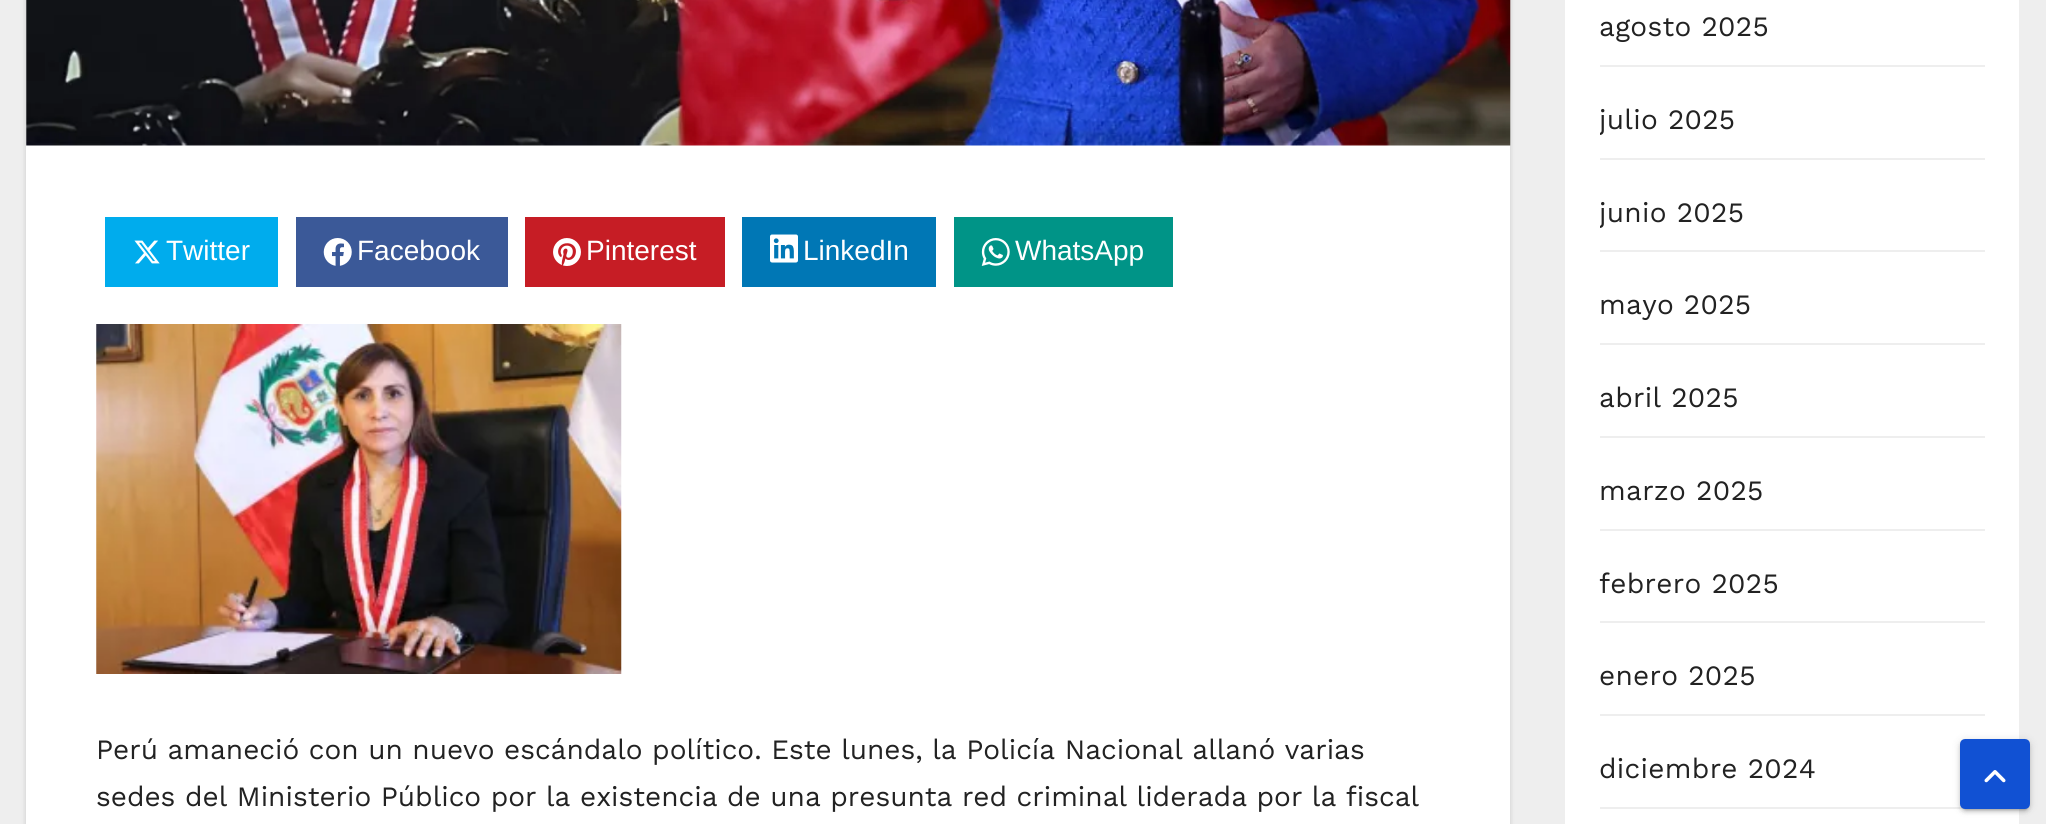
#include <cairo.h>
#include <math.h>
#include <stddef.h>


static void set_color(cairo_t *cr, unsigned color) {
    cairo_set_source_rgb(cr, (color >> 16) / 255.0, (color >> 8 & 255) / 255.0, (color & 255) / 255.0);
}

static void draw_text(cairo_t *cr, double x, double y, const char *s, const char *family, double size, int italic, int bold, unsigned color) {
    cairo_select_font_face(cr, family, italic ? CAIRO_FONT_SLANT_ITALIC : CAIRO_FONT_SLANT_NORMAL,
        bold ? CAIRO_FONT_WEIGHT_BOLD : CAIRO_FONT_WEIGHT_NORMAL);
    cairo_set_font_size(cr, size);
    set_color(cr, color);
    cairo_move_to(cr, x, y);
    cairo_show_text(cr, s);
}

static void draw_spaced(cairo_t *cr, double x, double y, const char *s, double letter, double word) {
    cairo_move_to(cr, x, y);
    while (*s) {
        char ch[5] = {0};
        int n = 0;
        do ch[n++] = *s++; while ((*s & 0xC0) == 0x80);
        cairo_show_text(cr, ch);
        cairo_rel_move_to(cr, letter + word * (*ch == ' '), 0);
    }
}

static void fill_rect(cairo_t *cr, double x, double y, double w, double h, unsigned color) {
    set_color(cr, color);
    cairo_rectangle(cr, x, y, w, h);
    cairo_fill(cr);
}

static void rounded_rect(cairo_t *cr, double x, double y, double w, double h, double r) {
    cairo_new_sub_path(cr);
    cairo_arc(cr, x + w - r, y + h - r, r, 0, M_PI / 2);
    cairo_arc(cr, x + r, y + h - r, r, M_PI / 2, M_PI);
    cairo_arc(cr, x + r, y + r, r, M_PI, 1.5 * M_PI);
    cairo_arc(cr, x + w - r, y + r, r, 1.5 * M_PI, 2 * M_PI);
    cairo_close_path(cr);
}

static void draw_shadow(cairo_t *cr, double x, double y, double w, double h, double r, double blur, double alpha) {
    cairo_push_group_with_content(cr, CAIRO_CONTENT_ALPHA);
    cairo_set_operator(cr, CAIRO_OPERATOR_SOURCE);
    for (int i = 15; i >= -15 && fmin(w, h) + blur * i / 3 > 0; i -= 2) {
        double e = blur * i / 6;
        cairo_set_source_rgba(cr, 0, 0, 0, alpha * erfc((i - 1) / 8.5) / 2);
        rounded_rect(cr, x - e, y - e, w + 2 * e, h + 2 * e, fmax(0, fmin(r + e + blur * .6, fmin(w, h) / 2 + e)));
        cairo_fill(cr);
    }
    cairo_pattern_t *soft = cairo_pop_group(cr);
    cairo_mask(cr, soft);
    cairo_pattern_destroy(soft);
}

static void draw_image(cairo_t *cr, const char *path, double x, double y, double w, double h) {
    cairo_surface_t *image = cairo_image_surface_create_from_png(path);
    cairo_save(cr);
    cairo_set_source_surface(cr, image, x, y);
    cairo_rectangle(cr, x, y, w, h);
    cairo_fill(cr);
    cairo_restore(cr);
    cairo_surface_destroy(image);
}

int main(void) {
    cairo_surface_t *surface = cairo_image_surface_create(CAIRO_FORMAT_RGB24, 2046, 824);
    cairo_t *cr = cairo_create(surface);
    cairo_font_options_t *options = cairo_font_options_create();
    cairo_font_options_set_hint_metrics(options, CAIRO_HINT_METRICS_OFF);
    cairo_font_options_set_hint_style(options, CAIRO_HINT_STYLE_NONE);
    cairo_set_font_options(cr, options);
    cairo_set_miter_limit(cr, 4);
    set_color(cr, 0xEEEEEE);
    cairo_paint(cr);
    set_color(cr, 0x000000);
    draw_shadow(cr, 26, -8, 1484, 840, 0, 2.5, 0.15);
    fill_rect(cr, 26, 0, 1484, 824, 0xFFFFFF);
    draw_image(cr, "assets/img1.png", 26, 0, 1485, 146);
    fill_rect(cr, 105, 217, 173, 70, 0x00ACED);
    draw_image(cr, "assets/img2.png", 134, 240, 26, 24);
    draw_text(cr, 166, 260, "Twitter", "Liberation Sans", 28, 0, 0, 0xFFFFFF);
    fill_rect(cr, 296, 217, 212, 70, 0x3B5998);
    draw_image(cr, "assets/img3.png", 323, 238, 29, 28);
    draw_text(cr, 357, 260, "Facebook", "Liberation Sans", 28, 0, 0, 0xFFFFFF);
    fill_rect(cr, 525, 217, 200, 70, 0xC61D25);
    draw_image(cr, "assets/img4.png", 553, 238, 28, 28);
    draw_text(cr, 586, 260, "Pinterest", "Liberation Sans", 28, 0, 0, 0xFFFFFF);
    fill_rect(cr, 742, 217, 194, 70, 0x0077B5);
    draw_image(cr, "assets/img5.png", 770, 234, 28, 29);
    draw_text(cr, 803, 260, "LinkedIn", "Liberation Sans", 28, 0, 0, 0xFFFFFF);
    fill_rect(cr, 954, 217, 219, 70, 0x009487);
    draw_image(cr, "assets/img6.png", 981, 238, 29, 28);
    draw_text(cr, 1015, 260, "WhatsApp", "Liberation Sans", 28, 0, 0, 0xFFFFFF);
    draw_image(cr, "assets/img7.png", 96, 324, 526, 350);
    draw_text(cr, 96, 759, "Perú amaneció con un nuevo escándalo político. Este lunes, la Policía Nacional allanó varias", "Work Sans", 28, 0, 0, 0x222222);
    draw_text(cr, 96, 806, "sedes del Ministerio Público por la existencia de una presunta red criminal liderada por la fiscal", "Work Sans", 28, 0, 0, 0x222222);
    fill_rect(cr, 1565, 0, 454, 824, 0xFFFFFF);
    fill_rect(cr, 1600, 65, 385, 2, 0xEEEEEE);
    set_color(cr, 0x222222);
    draw_spaced(cr, 1599, 36, "agosto 2025", 0.3, 0);
    fill_rect(cr, 1600, 158, 385, 2, 0xEEEEEE);
    cairo_save(cr);
    cairo_rectangle(cr, 1600, 84, 385, 74);
    cairo_clip(cr);
    set_color(cr, 0x222222);
    draw_spaced(cr, 1599, 129, "julio 2025", 0.3, 0);
    cairo_restore(cr);
    fill_rect(cr, 1600, 250, 385, 2, 0xEEEEEE);
    cairo_save(cr);
    cairo_rectangle(cr, 1600, 177, 385, 73);
    cairo_clip(cr);
    set_color(cr, 0x222222);
    draw_spaced(cr, 1599, 222, "junio 2025", 0.3, 0);
    cairo_restore(cr);
    fill_rect(cr, 1600, 343, 385, 2, 0xEEEEEE);
    set_color(cr, 0x222222);
    draw_spaced(cr, 1599, 314, "mayo 2025", 0.3, 0);
    fill_rect(cr, 1600, 436, 385, 2, 0xEEEEEE);
    set_color(cr, 0x222222);
    draw_spaced(cr, 1599, 407, "abril 2025", 0.3, 0);
    fill_rect(cr, 1600, 529, 385, 2, 0xEEEEEE);
    set_color(cr, 0x222222);
    draw_spaced(cr, 1599, 500, "marzo 2025", 0.3, 0);
    fill_rect(cr, 1600, 621, 385, 2, 0xEEEEEE);
    set_color(cr, 0x222222);
    draw_spaced(cr, 1599, 593, "febrero 2025", 0.3, 0);
    fill_rect(cr, 1600, 714, 385, 2, 0xEEEEEE);
    set_color(cr, 0x222222);
    draw_spaced(cr, 1599, 685, "enero 2025", 0.3, 0);
    fill_rect(cr, 1600, 807, 365, 2, 0xEEEEEE);
    set_color(cr, 0x222222);
    draw_spaced(cr, 1599, 778, "diciembre 2024", 0.3, 0);
    set_color(cr, 0x000000);
    draw_shadow(cr, 1960, 740, 70, 70, 5, 4.5, 0.12);
    draw_shadow(cr, 1964, 747, 63, 63, 2, 1, 0.2);
    draw_shadow(cr, 1960, 742, 70, 70, 5, 2, 0.14);
    set_color(cr, 0x1151D3);
    rounded_rect(cr, 1962, 741, 66, 66, 3);
    cairo_fill_preserve(cr);
    cairo_set_line_width(cr, 4);
    cairo_stroke(cr);
    draw_image(cr, "assets/img8.png", 1984, 770, 22, 13);
    cairo_surface_write_to_png(surface, "output.png");
    cairo_font_options_destroy(options);
    cairo_destroy(cr);
    cairo_surface_destroy(surface);
    return 0;
}
